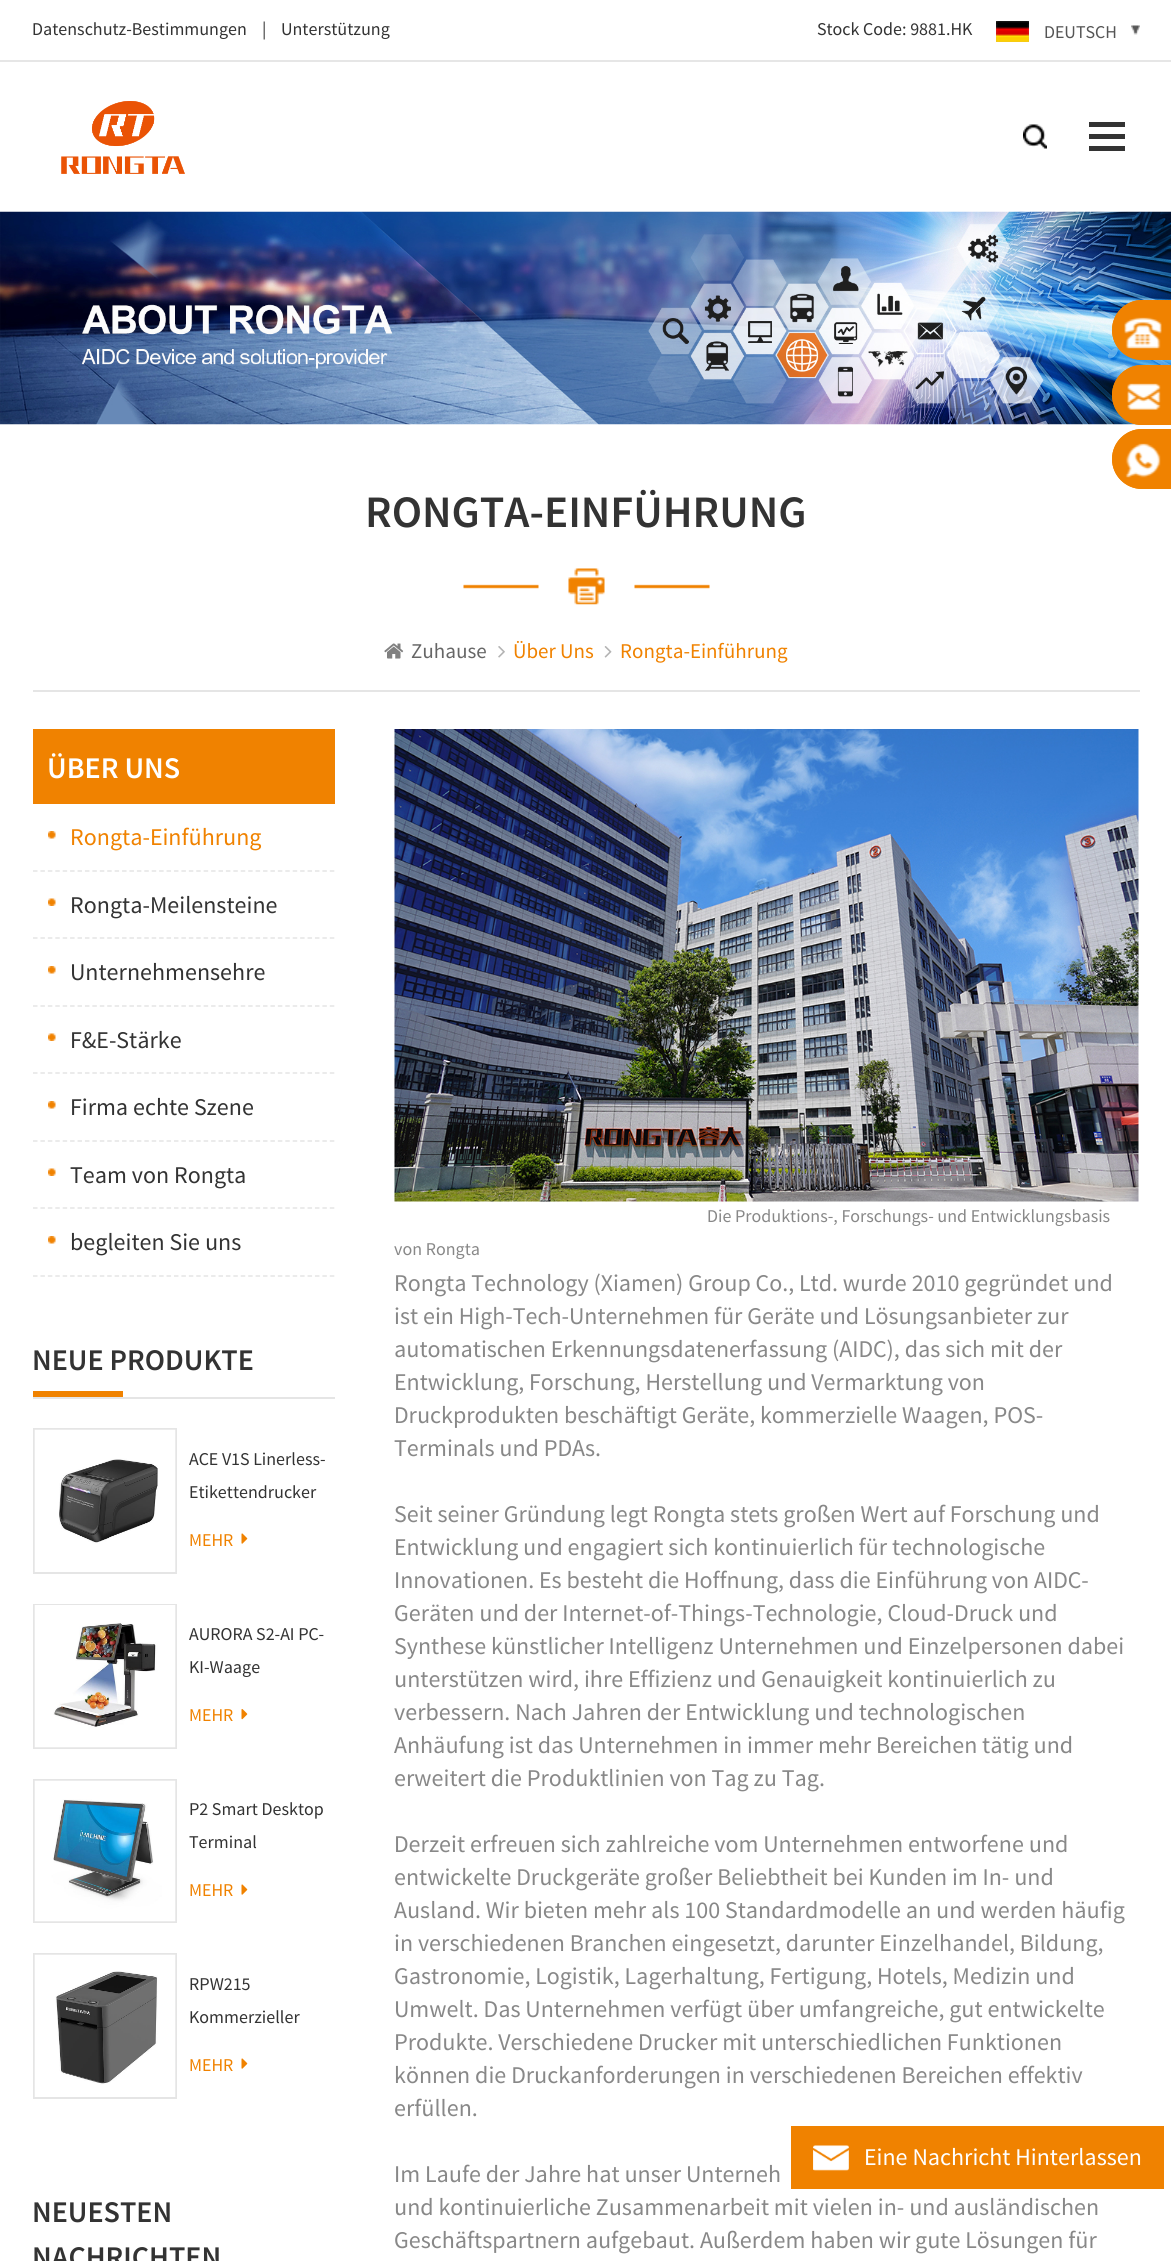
#include <cairo.h>
#include <math.h>
#include <stddef.h>


static void set_color(cairo_t *cr, unsigned color) {
    cairo_set_source_rgb(cr, (color >> 16) / 255.0, (color >> 8 & 255) / 255.0, (color & 255) / 255.0);
}

static void draw_text(cairo_t *cr, double x, double y, const char *s, const char *family, double size, int italic, int bold, unsigned color) {
    cairo_select_font_face(cr, family, italic ? CAIRO_FONT_SLANT_ITALIC : CAIRO_FONT_SLANT_NORMAL,
        bold ? CAIRO_FONT_WEIGHT_BOLD : CAIRO_FONT_WEIGHT_NORMAL);
    cairo_set_font_size(cr, size);
    set_color(cr, color);
    cairo_move_to(cr, x, y);
    cairo_show_text(cr, s);
}

static void fill_rect(cairo_t *cr, double x, double y, double w, double h, unsigned color) {
    set_color(cr, color);
    cairo_rectangle(cr, x, y, w, h);
    cairo_fill(cr);
}

static void draw_image(cairo_t *cr, const char *path, double x, double y, double w, double h) {
    cairo_surface_t *image = cairo_image_surface_create_from_png(path);
    cairo_save(cr);
    cairo_set_source_surface(cr, image, x, y);
    cairo_rectangle(cr, x, y, w, h);
    cairo_fill(cr);
    cairo_restore(cr);
    cairo_surface_destroy(image);
}

int main(void) {
    cairo_surface_t *surface = cairo_image_surface_create(CAIRO_FORMAT_RGB24, 1171, 2261);
    cairo_t *cr = cairo_create(surface);
    cairo_font_options_t *options = cairo_font_options_create();
    cairo_font_options_set_hint_metrics(options, CAIRO_HINT_METRICS_OFF);
    cairo_font_options_set_hint_style(options, CAIRO_HINT_STYLE_NONE);
    cairo_set_font_options(cr, options);
    cairo_set_miter_limit(cr, 4);
    set_color(cr, 0xFFFFFF);
    cairo_paint(cr);
    fill_rect(cr, 0, 60, 1171, 2, 0xE6E6E6);
    draw_text(cr, 32, 35, "Datenschutz-Bestimmungen", "Source Sans Pro", 18, 0, 0, 0x333333);
    draw_text(cr, 262, 35, "|", "Source Sans Pro", 18, 0, 0, 0x333333);
    draw_text(cr, 281, 35, "Unterstützung", "Source Sans Pro", 18, 0, 0, 0x333333);
    draw_text(cr, 817, 35, "Stock Code: 9881.HK", "Source Sans Pro", 18, 0, 0, 0x333333);
    draw_image(cr, "assets/img1.png", 996, 21, 33, 21);
    draw_text(cr, 1044, 38, "DEUTSCH", "Source Sans Pro", 18, 0, 0, 0x555555);
    draw_image(cr, "assets/img2.png", 1131, 25, 9, 10);
    draw_image(cr, "assets/img3.png", 61, 101, 124, 73);
    draw_image(cr, "assets/img4.png", 1023, 124, 24, 25);
    fill_rect(cr, 1089, 122, 36, 5, 0x333333);
    fill_rect(cr, 1089, 134, 36, 5, 0x333333);
    fill_rect(cr, 1089, 146, 36, 5, 0x333333);
    draw_image(cr, "assets/img5.png", 0, 211, 1171, 214);
    set_color(cr, 0xF08200);
    cairo_new_path(cr);
    cairo_move_to(cr, 1142, 300);
    cairo_line_to(cr, 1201, 300);
    cairo_line_to(cr, 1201, 360);
    cairo_line_to(cr, 1142, 360);
    cairo_curve_to(cr, 1125.5, 360, 1112, 346.5, 1112, 330);
    cairo_curve_to(cr, 1112, 313.5, 1125.5, 300, 1142, 300);
    cairo_close_path(cr);
    cairo_fill(cr);
    draw_image(cr, "assets/img6.png", 1124, 317, 38, 32);
    cairo_new_path(cr);
    cairo_move_to(cr, 1142, 301);
    cairo_line_to(cr, 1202, 301);
    cairo_line_to(cr, 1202, 359);
    cairo_line_to(cr, 1142, 359);
    cairo_curve_to(cr, 1126, 359, 1113, 346, 1113, 330);
    cairo_curve_to(cr, 1113, 314, 1126, 301, 1142, 301);
    cairo_close_path(cr);
    cairo_stroke(cr);
    cairo_new_path(cr);
    cairo_move_to(cr, 1142, 365);
    cairo_line_to(cr, 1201, 365);
    cairo_line_to(cr, 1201, 425);
    cairo_line_to(cr, 1142, 425);
    cairo_curve_to(cr, 1125.5, 425, 1112, 411.5, 1112, 395);
    cairo_curve_to(cr, 1112, 378.5, 1125.5, 365, 1142, 365);
    cairo_close_path(cr);
    cairo_fill(cr);
    draw_image(cr, "assets/img7.png", 1127, 383, 34, 27);
    cairo_new_path(cr);
    cairo_move_to(cr, 1142, 366);
    cairo_line_to(cr, 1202, 366);
    cairo_line_to(cr, 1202, 424);
    cairo_line_to(cr, 1142, 424);
    cairo_curve_to(cr, 1126, 424, 1113, 411, 1113, 395);
    cairo_curve_to(cr, 1113, 379, 1126, 366, 1142, 366);
    cairo_close_path(cr);
    cairo_stroke(cr);
    cairo_new_path(cr);
    cairo_move_to(cr, 1142, 429);
    cairo_line_to(cr, 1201, 429);
    cairo_line_to(cr, 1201, 489);
    cairo_line_to(cr, 1142, 489);
    cairo_curve_to(cr, 1125.5, 489, 1112, 475.5, 1112, 459);
    cairo_curve_to(cr, 1112, 442.5, 1125.5, 429, 1142, 429);
    cairo_close_path(cr);
    cairo_fill(cr);
    draw_image(cr, "assets/img8.png", 1125, 443, 36, 35);
    cairo_new_path(cr);
    cairo_move_to(cr, 1142, 430);
    cairo_line_to(cr, 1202, 430);
    cairo_line_to(cr, 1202, 488);
    cairo_line_to(cr, 1142, 488);
    cairo_curve_to(cr, 1126, 488, 1113, 475, 1113, 459);
    cairo_curve_to(cr, 1113, 443, 1126, 430, 1142, 430);
    cairo_close_path(cr);
    cairo_stroke(cr);
    fill_rect(cr, 33, 690, 1107, 2, 0xE5E5E5);
    draw_text(cr, 365, 527, "RONGTA-EINFÜHRUNG", "Source Sans Pro SemiBold", 45, 0, 0, 0x333333);
    draw_image(cr, "assets/img9.png", 463, 568, 247, 37);
    draw_image(cr, "assets/img10.png", 384, 643, 20, 16);
    draw_text(cr, 411, 658, "Zuhause", "Source Sans Pro", 21, 0, 0, 0x666666);
    draw_image(cr, "assets/img11.png", 498, 646, 7, 12);
    draw_text(cr, 513, 658, "Über Uns", "Source Sans Pro", 21, 0, 0, 0xF08200);
    draw_image(cr, "assets/img12.png", 604, 646, 8, 12);
    draw_text(cr, 620, 658, "Rongta-Einführung", "Source Sans Pro", 21, 0, 0, 0xF08200);
    fill_rect(cr, 33, 729, 302, 75, 0xF08200);
    draw_text(cr, 47, 778, "ÜBER UNS", "Source Sans Pro SemiBold", 30, 0, 0, 0xFFFFFF);
    cairo_new_path(cr);
    cairo_move_to(cr, 33, 871);
    cairo_line_to(cr, 334.5, 871);
    set_color(cr, 0xE5E5E5);
    cairo_set_line_width(cr, 1.5);
    cairo_set_dash(cr, (double[]){4.5, 2.92}, 2, 0);
    cairo_stroke(cr);
    draw_image(cr, "assets/img13.png", 48, 831, 8, 8);
    draw_text(cr, 70, 845, "Rongta-Einführung", "Source Sans Pro", 24, 0, 0, 0xF08200);
    cairo_new_path(cr);
    cairo_move_to(cr, 33, 938);
    cairo_line_to(cr, 334.5, 938);
    set_color(cr, 0xE5E5E5);
    cairo_stroke(cr);
    draw_image(cr, "assets/img14.png", 48, 898, 8, 8);
    draw_text(cr, 70, 913, "Rongta-Meilensteine", "Source Sans Pro", 24, 0, 0, 0x333333);
    cairo_new_path(cr);
    cairo_move_to(cr, 33, 1006);
    cairo_line_to(cr, 334.5, 1006);
    set_color(cr, 0xE5E5E5);
    cairo_stroke(cr);
    draw_image(cr, "assets/img13.png", 48, 966, 8, 8);
    draw_text(cr, 70, 980, "Unternehmensehre", "Source Sans Pro", 24, 0, 0, 0x333333);
    cairo_new_path(cr);
    cairo_move_to(cr, 33, 1073);
    cairo_line_to(cr, 334.5, 1073);
    set_color(cr, 0xE5E5E5);
    cairo_stroke(cr);
    draw_image(cr, "assets/img14.png", 48, 1033, 8, 8);
    draw_text(cr, 70, 1048, "F&E-Stärke", "Source Sans Pro", 24, 0, 0, 0x333333);
    cairo_new_path(cr);
    cairo_move_to(cr, 33, 1141);
    cairo_line_to(cr, 334.5, 1141);
    set_color(cr, 0xE5E5E5);
    cairo_stroke(cr);
    draw_image(cr, "assets/img13.png", 48, 1101, 8, 8);
    draw_text(cr, 70, 1115, "Firma echte Szene", "Source Sans Pro", 24, 0, 0, 0x333333);
    cairo_new_path(cr);
    cairo_move_to(cr, 33, 1208);
    cairo_line_to(cr, 334.5, 1208);
    set_color(cr, 0xE5E5E5);
    cairo_stroke(cr);
    draw_image(cr, "assets/img14.png", 48, 1168, 8, 8);
    draw_text(cr, 70, 1183, "Team von Rongta", "Source Sans Pro", 24, 0, 0, 0x333333);
    cairo_new_path(cr);
    cairo_move_to(cr, 33, 1276);
    cairo_line_to(cr, 334.5, 1276);
    set_color(cr, 0xE5E5E5);
    cairo_stroke(cr);
    draw_image(cr, "assets/img13.png", 48, 1236, 8, 8);
    draw_text(cr, 70, 1250, "begleiten Sie uns", "Source Sans Pro", 24, 0, 0, 0x333333);
    fill_rect(cr, 33, 1397, 302, 2, 0xE5E5E5);
    draw_text(cr, 32, 1370, "NEUE PRODUKTE", "Source Sans Pro SemiBold", 30, 0, 0, 0x333333);
    fill_rect(cr, 33, 1391, 90, 6, 0xF08200);
    cairo_rectangle(cr, 34, 1429, 142, 144);
    set_color(cr, 0xE5E5E5);
    cairo_set_line_width(cr, 2);
    cairo_set_dash(cr, NULL, 0, 0);
    cairo_stroke(cr);
    draw_image(cr, "assets/img15.png", 34, 1429, 142, 143);
    draw_text(cr, 189, 1465, "ACE V1S Linerless-", "Source Sans Pro", 18, 0, 0, 0x333333);
    draw_text(cr, 189, 1498, "Etikettendrucker", "Source Sans Pro", 18, 0, 0, 0x333333);
    draw_text(cr, 189, 1546, "MEHR", "Source Sans Pro", 18, 0, 0, 0xF08200);
    draw_image(cr, "assets/img16.png", 241, 1533, 7, 11);
    cairo_rectangle(cr, 34, 1605, 142, 143);
    set_color(cr, 0xE5E5E5);
    cairo_stroke(cr);
    draw_image(cr, "assets/img17.png", 34, 1605, 142, 143);
    draw_text(cr, 189, 1640, "AURORA S2-AI PC-", "Source Sans Pro", 18, 0, 0, 0x333333);
    draw_text(cr, 189, 1673, "KI-Waage", "Source Sans Pro", 18, 0, 0, 0x333333);
    draw_text(cr, 189, 1721, "MEHR", "Source Sans Pro", 18, 0, 0, 0xF08200);
    draw_image(cr, "assets/img18.png", 241, 1709, 7, 11);
    cairo_rectangle(cr, 34, 1780, 142, 142);
    set_color(cr, 0xE5E5E5);
    cairo_stroke(cr);
    draw_image(cr, "assets/img19.png", 34, 1780, 142, 142);
    draw_text(cr, 189, 1815, "P2 Smart Desktop", "Source Sans Pro", 18, 0, 0, 0x333333);
    draw_text(cr, 189, 1848, "Terminal", "Source Sans Pro", 18, 0, 0, 0x333333);
    draw_text(cr, 189, 1896, "MEHR", "Source Sans Pro", 18, 0, 0, 0xF08200);
    draw_image(cr, "assets/img16.png", 241, 1884, 7, 11);
    cairo_rectangle(cr, 34, 1954, 142, 144);
    set_color(cr, 0xE5E5E5);
    cairo_stroke(cr);
    draw_image(cr, "assets/img20.png", 34, 1954, 142, 143);
    draw_text(cr, 189, 1990, "RPW215", "Source Sans Pro", 18, 0, 0, 0x333333);
    draw_text(cr, 189, 2023, "Kommerzieller", "Source Sans Pro", 18, 0, 0, 0x333333);
    draw_text(cr, 189, 2071, "MEHR", "Source Sans Pro", 18, 0, 0, 0xF08200);
    draw_image(cr, "assets/img16.png", 241, 2058, 7, 11);
    draw_text(cr, 32, 2222, "NEUESTEN", "Source Sans Pro SemiBold", 30, 0, 0, 0x333333);
    draw_text(cr, 32, 2267, "NACHRICHTEN", "Source Sans Pro SemiBold", 30, 0, 0, 0x333333);
    draw_image(cr, "assets/img21.png", 394, 729, 745, 473);
    draw_text(cr, 707, 1222, "Die Produktions-, Forschungs- und Entwicklungsbasis", "Source Sans Pro", 18, 0, 0, 0x888888);
    draw_text(cr, 394, 1255, "von Rongta", "Source Sans Pro", 18, 0, 0, 0x888888);
    draw_text(cr, 394, 1291, "Rongta Technology (Xiamen) Group Co., Ltd. wurde 2010 gegründet und", "Source Sans Pro", 24, 0, 0, 0x888888);
    draw_text(cr, 394, 1324, "ist ein High-Tech-Unternehmen für Geräte und Lösungsanbieter zur", "Source Sans Pro", 24, 0, 0, 0x888888);
    draw_text(cr, 394, 1357, "automatischen Erkennungsdatenerfassung (AIDC), das sich mit der", "Source Sans Pro", 24, 0, 0, 0x888888);
    draw_text(cr, 394, 1390, "Entwicklung, Forschung, Herstellung und Vermarktung von", "Source Sans Pro", 24, 0, 0, 0x888888);
    draw_text(cr, 394, 1423, "Druckprodukten beschäftigt Geräte, kommerzielle Waagen, POS-", "Source Sans Pro", 24, 0, 0, 0x888888);
    draw_text(cr, 394, 1456, "Terminals und PDAs.", "Source Sans Pro", 24, 0, 0, 0x888888);
    draw_text(cr, 394, 1522, "Seit seiner Gründung legt Rongta stets großen Wert auf Forschung und", "Source Sans Pro", 24, 0, 0, 0x888888);
    draw_text(cr, 394, 1555, "Entwicklung und engagiert sich kontinuierlich für technologische", "Source Sans Pro", 24, 0, 0, 0x888888);
    draw_text(cr, 394, 1588, "Innovationen. Es besteht die Hoffnung, dass die Einführung von AIDC-", "Source Sans Pro", 24, 0, 0, 0x888888);
    draw_text(cr, 394, 1621, "Geräten und der Internet-of-Things-Technologie, Cloud-Druck und", "Source Sans Pro", 24, 0, 0, 0x888888);
    draw_text(cr, 394, 1654, "Synthese künstlicher Intelligenz Unternehmen und Einzelpersonen dabei", "Source Sans Pro", 24, 0, 0, 0x888888);
    draw_text(cr, 394, 1687, "unterstützen wird, ihre Effizienz und Genauigkeit kontinuierlich zu", "Source Sans Pro", 24, 0, 0, 0x888888);
    draw_text(cr, 394, 1720, "verbessern. Nach Jahren der Entwicklung und technologischen", "Source Sans Pro", 24, 0, 0, 0x888888);
    draw_text(cr, 394, 1753, "Anhäufung ist das Unternehmen in immer mehr Bereichen tätig und", "Source Sans Pro", 24, 0, 0, 0x888888);
    draw_text(cr, 394, 1786, "erweitert die Produktlinien von Tag zu Tag.", "Source Sans Pro", 24, 0, 0, 0x888888);
    draw_text(cr, 394, 1852, "Derzeit erfreuen sich zahlreiche vom Unternehmen entworfene und", "Source Sans Pro", 24, 0, 0, 0x888888);
    draw_text(cr, 394, 1885, "entwickelte Druckgeräte großer Beliebtheit bei Kunden im In- und", "Source Sans Pro", 24, 0, 0, 0x888888);
    draw_text(cr, 394, 1918, "Ausland. Wir bieten mehr als 100 Standardmodelle an und werden häufig", "Source Sans Pro", 24, 0, 0, 0x888888);
    draw_text(cr, 394, 1951, "in verschiedenen Branchen eingesetzt, darunter Einzelhandel, Bildung,", "Source Sans Pro", 24, 0, 0, 0x888888);
    draw_text(cr, 394, 1984, "Gastronomie, Logistik, Lagerhaltung, Fertigung, Hotels, Medizin und", "Source Sans Pro", 24, 0, 0, 0x888888);
    draw_text(cr, 394, 2017, "Umwelt. Das Unternehmen verfügt über umfangreiche, gut entwickelte", "Source Sans Pro", 24, 0, 0, 0x888888);
    draw_text(cr, 394, 2050, "Produkte. Verschiedene Drucker mit unterschiedlichen Funktionen", "Source Sans Pro", 24, 0, 0, 0x888888);
    draw_text(cr, 394, 2083, "können die Druckanforderungen in verschiedenen Bereichen effektiv", "Source Sans Pro", 24, 0, 0, 0x888888);
    draw_text(cr, 394, 2116, "erfüllen.", "Source Sans Pro", 24, 0, 0, 0x888888);
    draw_text(cr, 394, 2182, "Im Laufe der Jahre hat unser Unterneh", "Source Sans Pro", 24, 0, 0, 0x888888);
    draw_text(cr, 394, 2215, "und kontinuierliche Zusammenarbeit mit vielen in- und ausländischen", "Source Sans Pro", 24, 0, 0, 0x888888);
    draw_text(cr, 394, 2248, "Geschäftspartnern aufgebaut. Außerdem haben wir gute Lösungen für", "Source Sans Pro", 24, 0, 0, 0x888888);
    fill_rect(cr, 791, 2126, 373, 63, 0xF08200);
    draw_image(cr, "assets/img22.png", 813, 2145, 36, 26);
    draw_text(cr, 864, 2165, "Eine Nachricht Hinterlassen", "Source Sans Pro", 24, 0, 0, 0xFFFFFF);
    cairo_surface_write_to_png(surface, "output.png");
    cairo_font_options_destroy(options);
    cairo_destroy(cr);
    cairo_surface_destroy(surface);
    return 0;
}
